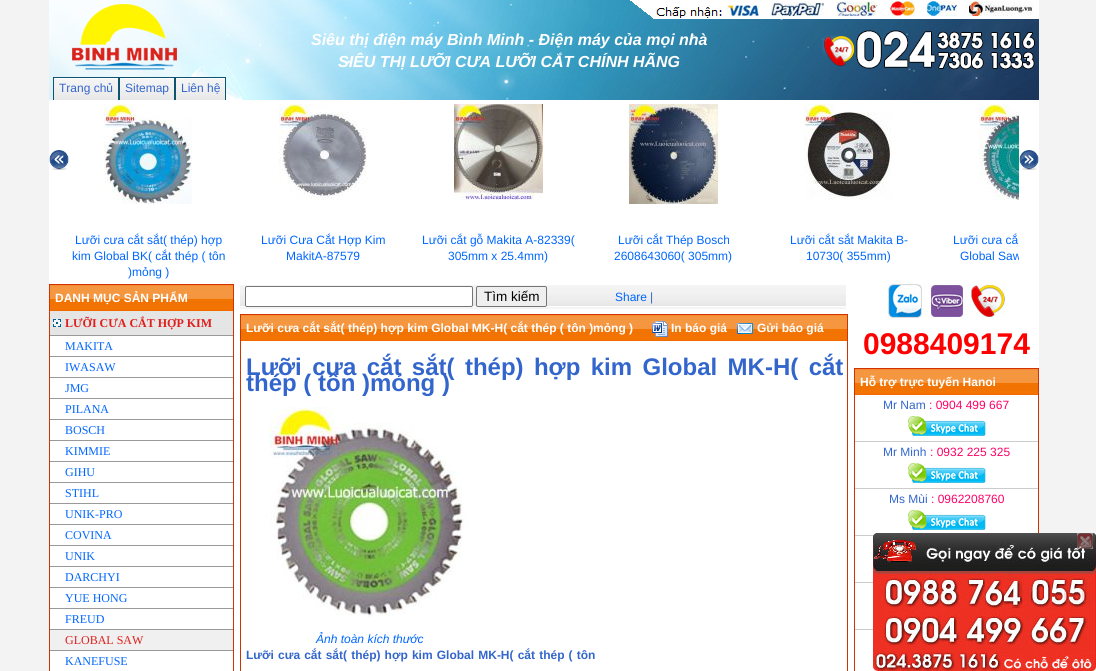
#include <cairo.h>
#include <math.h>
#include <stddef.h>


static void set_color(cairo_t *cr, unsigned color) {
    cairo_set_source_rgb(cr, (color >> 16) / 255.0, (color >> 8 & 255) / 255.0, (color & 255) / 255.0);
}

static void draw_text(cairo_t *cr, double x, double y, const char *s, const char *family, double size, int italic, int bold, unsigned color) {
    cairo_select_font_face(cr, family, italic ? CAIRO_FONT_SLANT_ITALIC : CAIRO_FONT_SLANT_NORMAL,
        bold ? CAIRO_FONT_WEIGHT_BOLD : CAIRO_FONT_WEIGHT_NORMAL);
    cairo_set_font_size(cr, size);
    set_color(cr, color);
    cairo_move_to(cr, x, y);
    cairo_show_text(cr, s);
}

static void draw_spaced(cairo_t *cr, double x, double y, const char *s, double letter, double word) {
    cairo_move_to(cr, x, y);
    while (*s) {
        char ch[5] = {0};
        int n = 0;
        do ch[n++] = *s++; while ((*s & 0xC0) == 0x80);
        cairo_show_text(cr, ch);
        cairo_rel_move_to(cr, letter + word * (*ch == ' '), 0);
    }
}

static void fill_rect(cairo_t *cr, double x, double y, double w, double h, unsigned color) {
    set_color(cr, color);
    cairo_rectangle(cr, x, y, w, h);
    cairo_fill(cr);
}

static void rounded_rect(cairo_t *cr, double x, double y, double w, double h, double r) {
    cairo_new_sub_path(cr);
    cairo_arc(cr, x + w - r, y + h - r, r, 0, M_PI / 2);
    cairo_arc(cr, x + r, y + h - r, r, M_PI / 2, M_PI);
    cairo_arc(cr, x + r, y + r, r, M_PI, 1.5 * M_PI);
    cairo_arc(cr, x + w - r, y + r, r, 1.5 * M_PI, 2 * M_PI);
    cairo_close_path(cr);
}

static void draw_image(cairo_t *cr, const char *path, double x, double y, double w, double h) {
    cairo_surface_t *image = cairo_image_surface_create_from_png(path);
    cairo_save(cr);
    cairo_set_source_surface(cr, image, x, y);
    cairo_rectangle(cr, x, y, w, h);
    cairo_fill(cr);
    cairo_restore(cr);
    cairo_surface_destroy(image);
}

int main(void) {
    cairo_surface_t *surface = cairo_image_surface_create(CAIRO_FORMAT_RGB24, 1096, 671);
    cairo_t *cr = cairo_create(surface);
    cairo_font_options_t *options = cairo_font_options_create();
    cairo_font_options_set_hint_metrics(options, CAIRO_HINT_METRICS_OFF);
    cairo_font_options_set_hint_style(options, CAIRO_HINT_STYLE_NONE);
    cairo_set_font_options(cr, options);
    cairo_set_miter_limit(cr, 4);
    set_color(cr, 0xF3F3F3);
    cairo_paint(cr);
    fill_rect(cr, 49, 100, 990, 571, 0xFFFFFF);
    draw_image(cr, "assets/img1.png", 49, 0, 990, 100);
    draw_image(cr, "assets/img2.png", 72, 4, 105, 66);
    draw_image(cr, "assets/img3.png", 630, 0, 409, 19);
    draw_text(cr, 311, 45, "Siêu thị điện máy Bình Minh - Điện máy của mọi nhà", "Liberation Sans", 16, 1, 1, 0xFFFFFF);
    draw_image(cr, "assets/img4.png", 824, 30, 211, 40);
    draw_text(cr, 338, 67, "SIÊU THỊ LƯỠI CƯA LƯỠI CẮT CHÍNH HÃNG", "Liberation Sans", 16, 1, 1, 0xFFFFFF);
    draw_image(cr, "assets/img5.png", 54, 78, 64, 22);
    fill_rect(cr, 53, 77, 173, 1, 0x0B5371);
    fill_rect(cr, 118, 77, 2, 23, 0x0B5371);
    fill_rect(cr, 53, 77, 1, 23, 0x0B5371);
    draw_text(cr, 59, 92, "Trang chủ", "Liberation Sans", 12, 0, 0, 0x3366CC);
    draw_image(cr, "assets/img6.png", 120, 78, 54, 22);
    fill_rect(cr, 174, 77, 2, 23, 0x0B5371);
    draw_text(cr, 125, 92, "Sitemap", "Liberation Sans", 12, 0, 0, 0x3366CC);
    draw_image(cr, "assets/img7.png", 176, 78, 49, 22);
    fill_rect(cr, 225, 77, 1, 23, 0x0B5371);
    draw_text(cr, 181, 92, "Liên hệ", "Liberation Sans", 12, 0, 0, 0x3366CC);
    draw_image(cr, "assets/img8.png", 49, 150, 20, 20);
    draw_image(cr, "assets/img9.png", 1019, 150, 20, 20);
    draw_image(cr, "assets/img10.png", 104, 104, 88, 100);
    draw_text(cr, 75, 244, "Lưỡi cưa cắt sắt( thép) hợp", "Liberation Sans", 12, 0, 0, 0x0066FF);
    draw_text(cr, 72, 260, "kim Global BK( cắt thép ( tôn", "Liberation Sans", 12, 0, 0, 0x0066FF);
    draw_text(cr, 128, 276, ")mỏng )", "Liberation Sans", 12, 0, 0, 0x0066FF);
    draw_image(cr, "assets/img11.png", 279, 104, 88, 96);
    draw_text(cr, 261, 244, "Lưỡi Cưa Cắt Hợp Kim", "Liberation Sans", 12, 0, 0, 0x0066FF);
    draw_text(cr, 286, 260, "MakitA-87579", "Liberation Sans", 12, 0, 0, 0x0066FF);
    draw_image(cr, "assets/img12.png", 454, 104, 89, 96);
    draw_text(cr, 422, 244, "Lưỡi cắt gỗ Makita A-82339(", "Liberation Sans", 12, 0, 0, 0x0066FF);
    draw_text(cr, 448, 260, "305mm x 25.4mm)", "Liberation Sans", 12, 0, 0, 0x0066FF);
    draw_image(cr, "assets/img13.png", 629, 104, 89, 100);
    draw_text(cr, 618, 244, "Lưỡi cắt Thép Bosch", "Liberation Sans", 12, 0, 0, 0x0066FF);
    draw_text(cr, 614, 260, "2608643060( 305mm)", "Liberation Sans", 12, 0, 0, 0x0066FF);
    draw_image(cr, "assets/img14.png", 804, 104, 88, 96);
    draw_text(cr, 790, 244, "Lưỡi cắt sắt Makita B-", "Liberation Sans", 12, 0, 0, 0x0066FF);
    draw_text(cr, 806, 260, "10730( 355mm)", "Liberation Sans", 12, 0, 0, 0x0066FF);
    draw_image(cr, "assets/img15.png", 979, 104, 40, 96);
    draw_text(cr, 953, 244, "Lưỡi cưa cắ", "Liberation Sans", 12, 0, 0, 0x0066FF);
    cairo_save(cr);
    cairo_rectangle(cr, 69, 100, 950, 182);
    cairo_clip(cr);
    draw_text(cr, 960, 260, "Global Saw", "Liberation Sans", 12, 0, 0, 0x0066FF);
    cairo_restore(cr);
    draw_image(cr, "assets/img16.png", 50, 285, 183, 26);
    fill_rect(cr, 49, 284, 185, 1, 0xD03202);
    fill_rect(cr, 233, 284, 1, 387, 0xD03202);
    fill_rect(cr, 49, 284, 1, 387, 0xD03202);
    draw_text(cr, 55, 302, "DANH MỤC SẢN PHẨM", "Liberation Sans", 12, 0, 1, 0xFFFFFF);
    fill_rect(cr, 50, 311, 183, 24, 0xE5E5E5);
    draw_image(cr, "assets/img17.png", 53, 319, 8, 8);
    fill_rect(cr, 50, 335, 183, 1, 0x999999);
    draw_text(cr, 65, 327, "LƯỠI CƯA CẮT HỢP KIM", "Liberation Serif", 12, 0, 1, 0xDF1F1C);
    fill_rect(cr, 50, 356, 183, 1, 0x999999);
    draw_text(cr, 65, 350, "MAKITA", "Liberation Serif", 12, 0, 0, 0x0066FF);
    fill_rect(cr, 50, 377, 183, 1, 0x999999);
    draw_text(cr, 65, 371, "IWASAW", "Liberation Serif", 12, 0, 0, 0x0066FF);
    fill_rect(cr, 50, 398, 183, 1, 0x999999);
    draw_text(cr, 65, 392, "JMG", "Liberation Serif", 12, 0, 0, 0x0066FF);
    fill_rect(cr, 50, 419, 183, 1, 0x999999);
    draw_text(cr, 65, 413, "PILANA", "Liberation Serif", 12, 0, 0, 0x0066FF);
    fill_rect(cr, 50, 440, 183, 1, 0x999999);
    draw_text(cr, 65, 434, "BOSCH", "Liberation Serif", 12, 0, 0, 0x0066FF);
    fill_rect(cr, 50, 461, 183, 1, 0x999999);
    draw_text(cr, 65, 455, "KIMMIE", "Liberation Serif", 12, 0, 0, 0x0066FF);
    fill_rect(cr, 50, 482, 183, 1, 0x999999);
    draw_text(cr, 65, 476, "GIHU", "Liberation Serif", 12, 0, 0, 0x0066FF);
    fill_rect(cr, 50, 503, 183, 1, 0x999999);
    draw_text(cr, 65, 497, "STIHL", "Liberation Serif", 12, 0, 0, 0x0066FF);
    fill_rect(cr, 50, 524, 183, 1, 0x999999);
    draw_text(cr, 65, 518, "UNIK-PRO", "Liberation Serif", 12, 0, 0, 0x0066FF);
    fill_rect(cr, 50, 545, 183, 1, 0x999999);
    draw_text(cr, 65, 539, "COVINA", "Liberation Serif", 12, 0, 0, 0x0066FF);
    fill_rect(cr, 50, 566, 183, 1, 0x999999);
    draw_text(cr, 65, 560, "UNIK", "Liberation Serif", 12, 0, 0, 0x0066FF);
    fill_rect(cr, 50, 587, 183, 1, 0x999999);
    draw_text(cr, 65, 581, "DARCHYI", "Liberation Serif", 12, 0, 0, 0x0066FF);
    fill_rect(cr, 50, 608, 183, 1, 0x999999);
    draw_text(cr, 65, 602, "YUE HONG", "Liberation Serif", 12, 0, 0, 0x0066FF);
    fill_rect(cr, 50, 629, 183, 1, 0x999999);
    draw_text(cr, 65, 623, "FREUD", "Liberation Serif", 12, 0, 0, 0x0066FF);
    fill_rect(cr, 50, 630, 183, 20, 0xF0F0F0);
    fill_rect(cr, 50, 650, 183, 1, 0x999999);
    draw_text(cr, 65, 644, "GLOBAL SAW", "Liberation Serif", 12, 0, 0, 0xDF1F1C);
    draw_text(cr, 65, 665, "KANEFUSE", "Liberation Serif", 12, 0, 0, 0x0066FF);
    draw_image(cr, "assets/img18.png", 240, 285, 606, 24);
    set_color(cr, 0xFFFFFF);
    rounded_rect(cr, 245.5, 286.5, 227, 20, 1.5);
    cairo_fill_preserve(cr);
    set_color(cr, 0x767676);
    cairo_set_line_width(cr, 1);
    cairo_stroke(cr);
    set_color(cr, 0xEFEFEF);
    rounded_rect(cr, 476.5, 286.5, 70, 20, 1.5);
    cairo_fill_preserve(cr);
    set_color(cr, 0x767676);
    cairo_stroke(cr);
    draw_text(cr, 484, 301, "Tìm kiếm", "Liberation Sans", 13.5, 0, 0, 0x000000);
    draw_text(cr, 615, 301, "Share", "Liberation Sans", 12, 0, 0, 0x0066FF);
    draw_text(cr, 650, 301, "|", "Liberation Sans", 12, 0, 0, 0x3366CC);
    draw_image(cr, "assets/img19.png", 241, 315, 606, 26);
    fill_rect(cr, 240, 314, 608, 1, 0xD03202);
    fill_rect(cr, 847, 314, 1, 357, 0xD03202);
    fill_rect(cr, 240, 314, 1, 357, 0xD03202);
    draw_text(cr, 246, 332, "Lưỡi cưa cắt sắt( thép) hợp kim Global MK-H( cắt thép ( tôn )mỏng )", "Liberation Sans", 12, 0, 1, 0xFFFFFF);
    draw_image(cr, "assets/img20.png", 652, 321, 16, 16);
    draw_text(cr, 671, 332, "In báo giá", "Liberation Sans", 12, 0, 1, 0xFFFFFF);
    draw_image(cr, "assets/img21.png", 737, 323, 16, 11);
    draw_text(cr, 757, 332, "Gửi báo giá", "Liberation Sans", 12, 0, 1, 0xFFFFFF);
    cairo_set_font_size(cr, 24);
    set_color(cr, 0x3366CC);
    draw_spaced(cr, 246, 375, "Lưỡi cưa cắt sắt( thép) hợp kim Global MK-H( cắt", 0, 3.75);
    draw_text(cr, 246, 391, "thép ( tôn )mỏng )", "Liberation Sans", 24, 0, 1, 0x3366CC);
    draw_image(cr, "assets/img22.png", 270, 407, 197, 210);
    draw_text(cr, 316, 643, "Ảnh toàn kích thước", "Liberation Sans", 12, 1, 0, 0x0066FF);
    cairo_select_font_face(cr, "Liberation Sans", CAIRO_FONT_SLANT_NORMAL, CAIRO_FONT_WEIGHT_BOLD);
    set_color(cr, 0x3366CC);
    draw_spaced(cr, 246, 659, "Lưỡi cưa cắt sắt( thép) hợp kim Global MK-H( cắt thép ( tôn", 0, 0.8);
    draw_image(cr, "assets/img23.png", 888, 284, 118, 34);
    draw_text(cr, 863, 354, "0988409174", "Liberation Sans", 30, 0, 1, 0xFF0000);
    draw_image(cr, "assets/img16.png", 855, 369, 183, 26);
    fill_rect(cr, 854, 368, 185, 1, 0xD03202);
    fill_rect(cr, 1038, 368, 1, 165, 0xD03202);
    fill_rect(cr, 854, 368, 1, 303, 0xD03202);
    draw_text(cr, 860, 386, "Hỗ trợ trực tuyến Hanoi", "Liberation Sans", 12, 0, 1, 0xFFFFFF);
    fill_rect(cr, 855, 441, 183, 1, 0xCCCCCC);
    draw_text(cr, 883, 409, "Mr Nam", "Liberation Sans", 12, 0, 0, 0x3366CC);
    draw_text(cr, 929, 409, ": 0904 499 667", "Liberation Sans", 12, 0, 0, 0xFF0066);
    draw_image(cr, "assets/img24.png", 908, 416, 78, 20);
    fill_rect(cr, 855, 488, 183, 1, 0xCCCCCC);
    draw_text(cr, 883, 456, "Mr Minh", "Liberation Sans", 12, 0, 0, 0x3366CC);
    draw_text(cr, 930, 456, ": 0932 225 325", "Liberation Sans", 12, 0, 0, 0xFF0066);
    draw_image(cr, "assets/img24.png", 908, 463, 78, 20);
    fill_rect(cr, 855, 535, 18, 1, 0xCCCCCC);
    draw_text(cr, 889, 503, "Ms Mùi", "Liberation Sans", 12, 0, 0, 0x3366CC);
    draw_text(cr, 931, 503, ": 0962208760", "Liberation Sans", 12, 0, 0, 0xFF0066);
    draw_image(cr, "assets/img24.png", 908, 510, 78, 20);
    fill_rect(cr, 855, 582, 18, 1, 0xCCCCCC);
    fill_rect(cr, 855, 629, 18, 1, 0xCCCCCC);
    draw_image(cr, "assets/img25.png", 873, 533, 223, 138);
    draw_image(cr, "assets/img26.png", 1077, 533, 16, 16);
    cairo_surface_write_to_png(surface, "output.png");
    cairo_font_options_destroy(options);
    cairo_destroy(cr);
    cairo_surface_destroy(surface);
    return 0;
}
